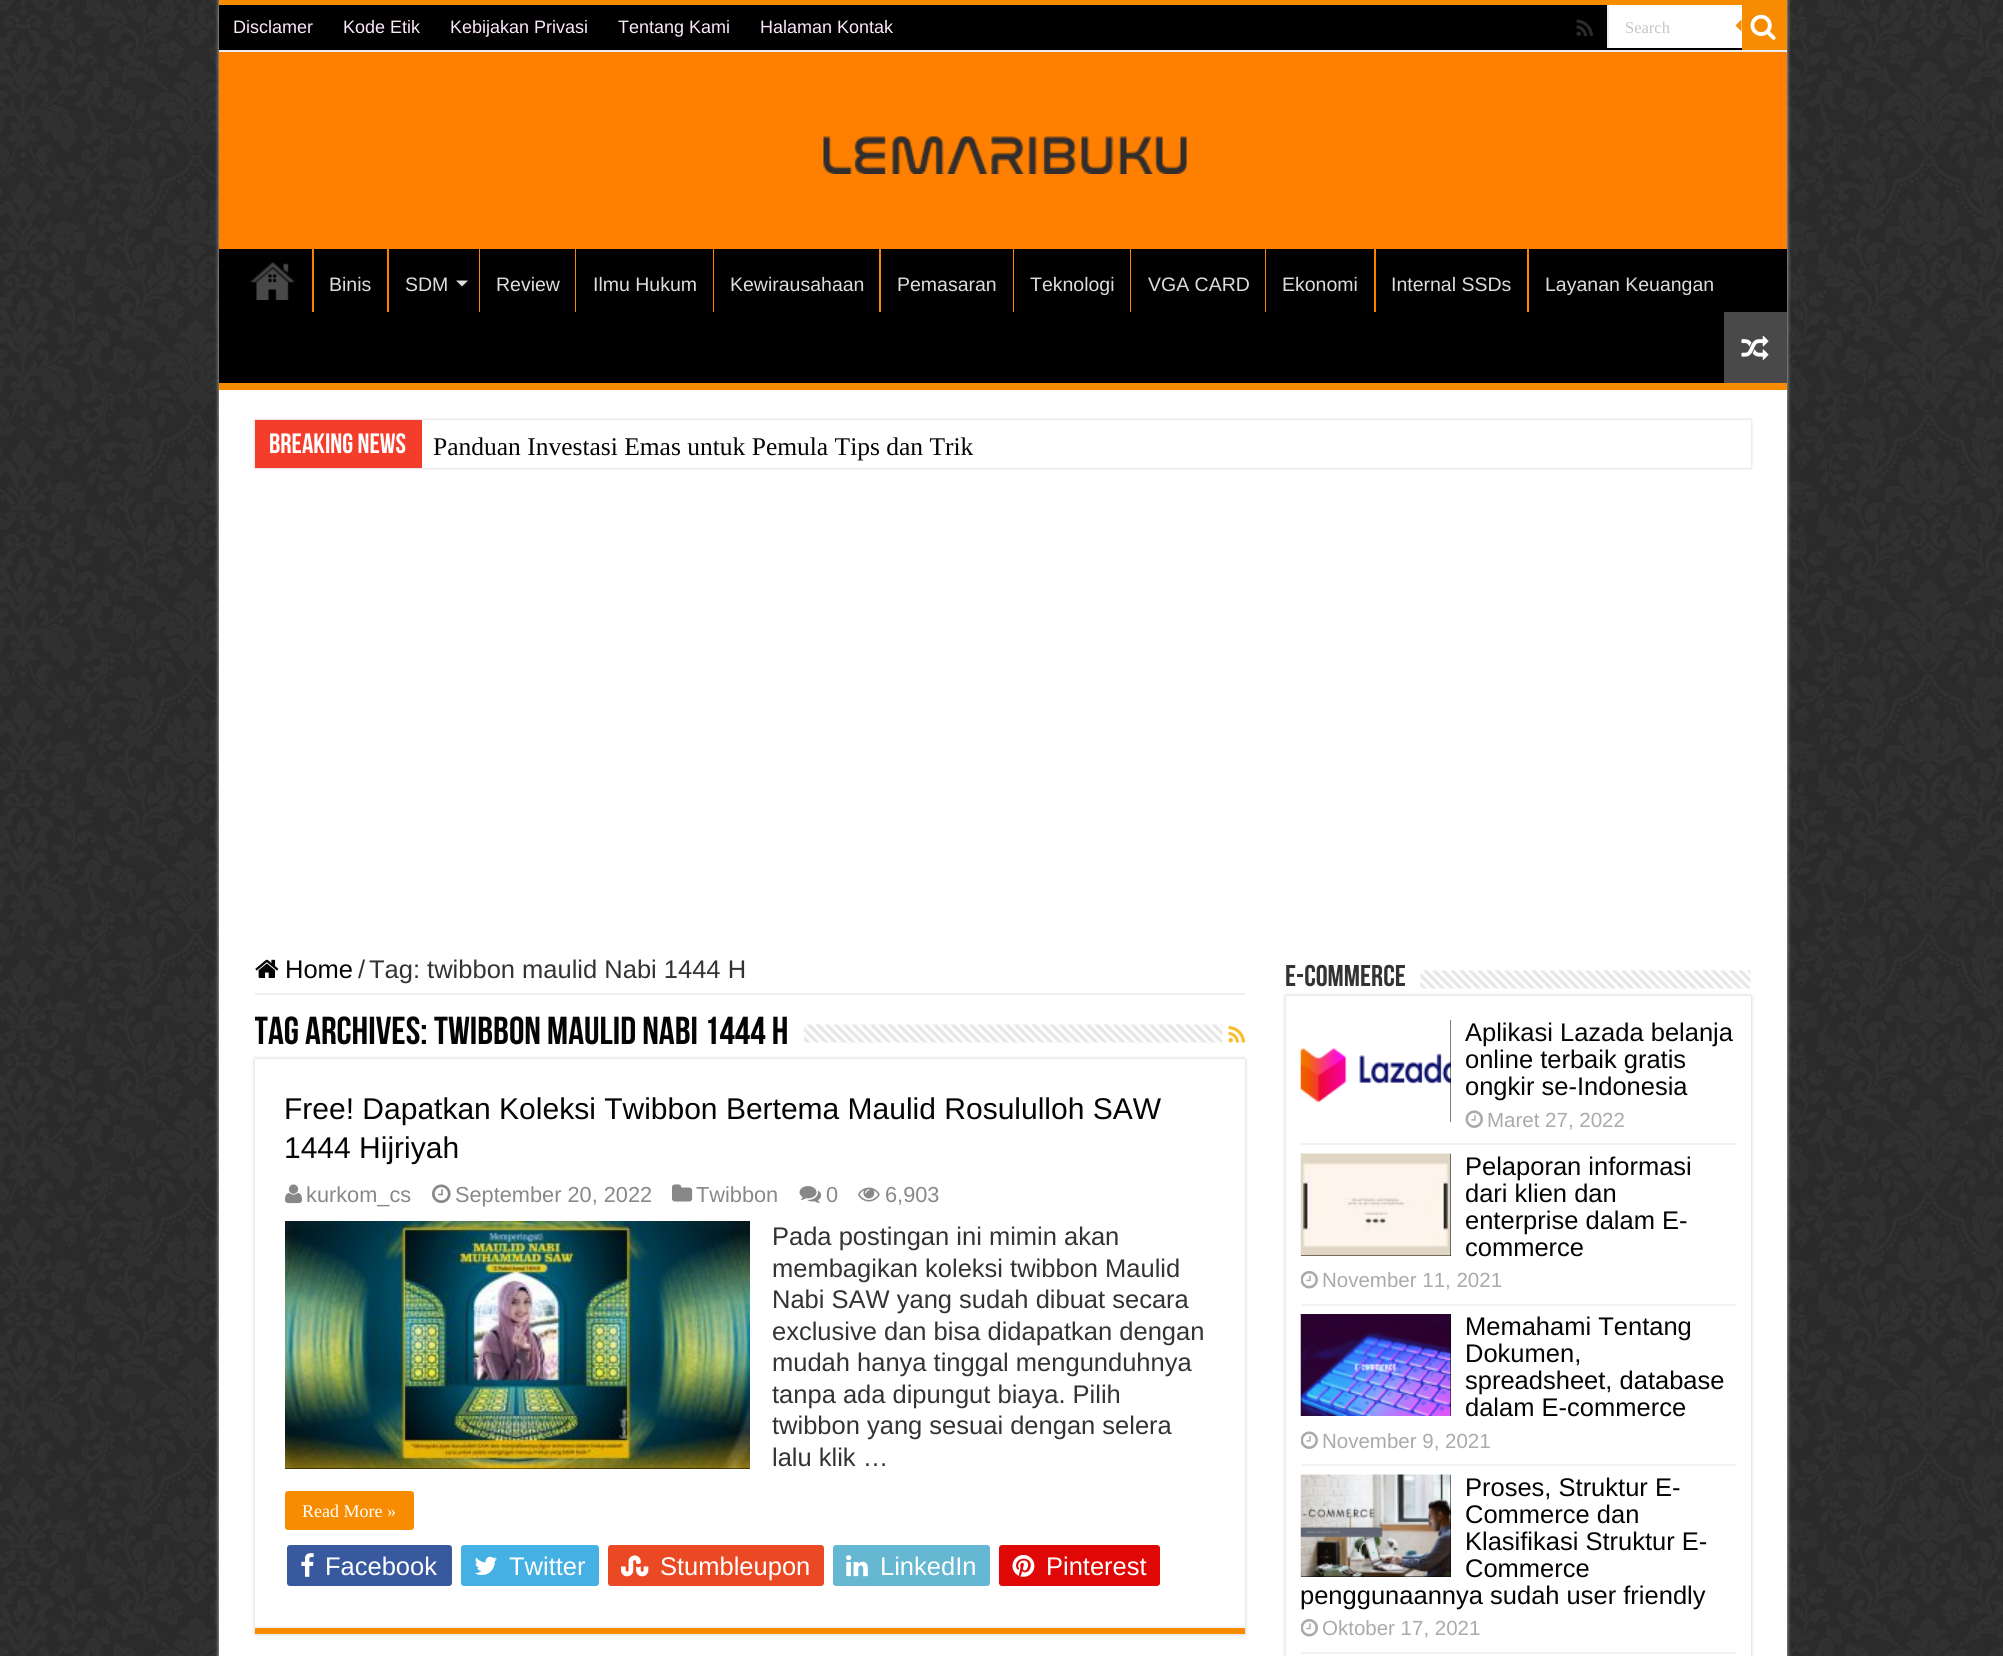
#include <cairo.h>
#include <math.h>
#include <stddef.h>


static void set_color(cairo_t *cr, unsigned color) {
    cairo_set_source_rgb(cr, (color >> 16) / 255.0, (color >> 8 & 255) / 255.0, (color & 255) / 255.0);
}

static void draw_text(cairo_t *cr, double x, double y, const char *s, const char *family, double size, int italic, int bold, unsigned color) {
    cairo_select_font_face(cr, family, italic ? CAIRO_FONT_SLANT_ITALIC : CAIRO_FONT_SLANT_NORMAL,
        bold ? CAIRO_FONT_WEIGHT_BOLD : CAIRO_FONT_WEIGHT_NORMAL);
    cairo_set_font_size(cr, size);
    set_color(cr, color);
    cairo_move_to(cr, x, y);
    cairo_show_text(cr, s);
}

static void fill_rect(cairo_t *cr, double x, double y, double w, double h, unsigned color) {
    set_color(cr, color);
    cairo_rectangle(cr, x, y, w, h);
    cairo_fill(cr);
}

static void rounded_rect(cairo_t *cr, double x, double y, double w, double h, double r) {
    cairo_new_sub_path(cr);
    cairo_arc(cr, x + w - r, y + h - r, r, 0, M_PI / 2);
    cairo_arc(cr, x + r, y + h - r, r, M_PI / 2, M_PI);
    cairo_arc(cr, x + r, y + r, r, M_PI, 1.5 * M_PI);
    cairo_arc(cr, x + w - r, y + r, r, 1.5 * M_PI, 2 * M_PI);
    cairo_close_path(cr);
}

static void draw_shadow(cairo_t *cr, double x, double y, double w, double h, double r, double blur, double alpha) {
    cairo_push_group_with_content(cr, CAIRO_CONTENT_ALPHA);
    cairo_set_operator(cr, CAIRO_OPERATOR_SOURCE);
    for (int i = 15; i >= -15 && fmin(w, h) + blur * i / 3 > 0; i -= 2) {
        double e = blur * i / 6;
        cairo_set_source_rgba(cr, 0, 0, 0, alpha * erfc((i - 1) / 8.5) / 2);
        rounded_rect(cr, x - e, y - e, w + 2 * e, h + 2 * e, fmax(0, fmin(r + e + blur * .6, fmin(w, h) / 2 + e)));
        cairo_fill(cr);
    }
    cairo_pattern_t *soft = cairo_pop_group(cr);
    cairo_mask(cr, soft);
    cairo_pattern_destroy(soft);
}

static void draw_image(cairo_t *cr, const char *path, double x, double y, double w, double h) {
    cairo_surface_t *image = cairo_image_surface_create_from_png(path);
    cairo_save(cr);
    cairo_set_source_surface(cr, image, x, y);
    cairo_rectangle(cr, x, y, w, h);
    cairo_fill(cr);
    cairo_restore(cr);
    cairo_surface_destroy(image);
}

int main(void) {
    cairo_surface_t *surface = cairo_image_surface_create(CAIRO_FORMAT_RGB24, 2003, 1656);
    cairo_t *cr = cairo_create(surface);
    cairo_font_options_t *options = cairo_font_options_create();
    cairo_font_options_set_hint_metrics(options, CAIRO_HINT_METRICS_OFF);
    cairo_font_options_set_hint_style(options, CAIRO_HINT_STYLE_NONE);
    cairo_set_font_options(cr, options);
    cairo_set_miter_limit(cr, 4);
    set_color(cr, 0x000000);
    cairo_paint(cr);
    draw_image(cr, "assets/img1.png", 0, 0, 2003, 1656);
    set_color(cr, 0xCACACA);
    draw_shadow(cr, 219, 0, 1568, 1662, 0, 2, 1);
    fill_rect(cr, 219, 390, 1568, 1266, 0xFFFFFF);
    fill_rect(cr, 219, 52, 1568, 197, 0xFF8000);
    fill_rect(cr, 219, 0, 1568, 5, 0xF88C00);
    fill_rect(cr, 219, 5, 1523, 45, 0x000000);
    fill_rect(cr, 219, 50, 1568, 2, 0xECECEC);
    draw_text(cr, 233, 33, "Disclamer", "Liberation Sans", 18, 0, 0, 0xFCE8FC);
    draw_text(cr, 343, 33, "Kode Etik", "Liberation Sans", 18, 0, 0, 0xFCE8FC);
    draw_text(cr, 450, 33, "Kebijakan Privasi", "Liberation Sans", 18, 0, 0, 0xFCE8FC);
    draw_text(cr, 618, 33, "Tentang Kami", "Liberation Sans", 18, 0, 0, 0xFCE8FC);
    draw_text(cr, 760, 33, "Halaman Kontak", "Liberation Sans", 18, 0, 0, 0xFCE8FC);
    draw_image(cr, "assets/img2.png", 1576, 19, 17, 17);
    fill_rect(cr, 1609, 5, 133, 43, 0xFFFFFF);
    fill_rect(cr, 1607, 5, 2, 43, 0xECECEC);
    draw_text(cr, 1625, 33, "Search", "Liberation Serif", 16.5, 0, 0, 0xC5C5C5);
    fill_rect(cr, 1742, 5, 45, 45, 0xF88C00);
    draw_image(cr, "assets/img3.png", 1750, 14, 26, 26);
    cairo_new_path(cr);
    cairo_move_to(cr, 1741.5, 19.5);
    cairo_line_to(cr, 1741.5, 31.5);
    cairo_line_to(cr, 1735.5, 25.5);
    cairo_close_path(cr);
    cairo_fill(cr);
    draw_image(cr, "assets/img4.png", 823, 136, 364, 38);
    fill_rect(cr, 219, 249, 1568, 134, 0x000000);
    fill_rect(cr, 219, 383, 1568, 7, 0xF88C00);
    draw_image(cr, "assets/img5.png", 250, 262, 45, 38);
    fill_rect(cr, 312, 249, 2, 63, 0xFF8000);
    draw_text(cr, 329, 291, "Binis", "Liberation Sans", 19.5, 0, 0, 0xDDDDDD);
    fill_rect(cr, 387, 249, 2, 63, 0xFF8000);
    draw_text(cr, 405, 291, "SDM", "Liberation Sans", 19.5, 0, 0, 0xDDDDDD);
    cairo_new_path(cr);
    cairo_move_to(cr, 456, 280.5);
    cairo_line_to(cr, 468, 280.5);
    cairo_line_to(cr, 462, 286.5);
    cairo_close_path(cr);
    cairo_fill(cr);
    fill_rect(cr, 479, 249, 1, 63, 0xFF8000);
    draw_text(cr, 496, 291, "Review", "Liberation Sans", 19.5, 0, 0, 0xDDDDDD);
    fill_rect(cr, 575, 249, 1, 63, 0xFF8000);
    draw_text(cr, 593, 291, "Ilmu Hukum", "Liberation Sans", 19.5, 0, 0, 0xDDDDDD);
    fill_rect(cr, 713, 249, 1, 63, 0xFF8000);
    draw_text(cr, 730, 291, "Kewirausahaan", "Liberation Sans", 19.5, 0, 0, 0xDDDDDD);
    fill_rect(cr, 879, 249, 2, 63, 0xFF8000);
    draw_text(cr, 897, 291, "Pemasaran", "Liberation Sans", 19.5, 0, 0, 0xDDDDDD);
    fill_rect(cr, 1013, 249, 1, 63, 0xFF8000);
    draw_text(cr, 1030, 291, "Teknologi", "Liberation Sans", 19.5, 0, 0, 0xDDDDDD);
    fill_rect(cr, 1130, 249, 1, 63, 0xFF8000);
    draw_text(cr, 1148, 291, "VGA CARD", "Liberation Sans", 19.5, 0, 0, 0xDDDDDD);
    fill_rect(cr, 1265, 249, 1, 63, 0xFF8000);
    draw_text(cr, 1282, 291, "Ekonomi", "Liberation Sans", 19.5, 0, 0, 0xDDDDDD);
    fill_rect(cr, 1374, 249, 2, 63, 0xFF8000);
    draw_text(cr, 1391, 291, "Internal SSDs", "Liberation Sans", 19.5, 0, 0, 0xDDDDDD);
    fill_rect(cr, 1527, 249, 2, 63, 0xFF8000);
    draw_text(cr, 1545, 291, "Layanan Keuangan", "Liberation Sans", 19.5, 0, 0, 0xDDDDDD);
    fill_rect(cr, 1724, 312, 63, 71, 0x494949);
    draw_image(cr, "assets/img6.png", 1741, 335, 28, 25);
    set_color(cr, 0xCACACA);
    draw_shadow(cr, 255, 420, 1496, 48, 0, 1.5, 1);
    fill_rect(cr, 422, 420, 1329, 48, 0xFFFFFF);
    fill_rect(cr, 255, 420, 167, 48, 0xF43D2A);
    draw_text(cr, 269, 453, "Breaking News", "Bebas Neue", 28, 0, 1, 0xFFFFFF);
    draw_text(cr, 433, 455, "Panduan Investasi Emas untuk Pemula Tips dan Trik", "Liberation Serif", 25.5, 0, 0, 0x050404);
    fill_rect(cr, 255, 993, 990, 2, 0xEEEEEE);
    draw_image(cr, "assets/img7.png", 255, 959, 24, 19);
    draw_text(cr, 285, 978, "Home", "Liberation Sans", 25.5, 0, 0, 0x050404);
    draw_text(cr, 358, 978, "/", "Liberation Sans", 25.5, 0, 0, 0x333333);
    draw_text(cr, 369, 978, "Tag: twibbon maulid Nabi 1444 H", "Liberation Sans", 25.5, 0, 0, 0x333333);
    cairo_save(cr);
    cairo_rectangle(cr, 255, 1010, 990, 49);
    cairo_clip(cr);
    draw_text(cr, 254, 1044, "Tag Archives:", "Bebas Neue", 39, 0, 1, 0x050404);
    cairo_restore(cr);
    draw_text(cr, 434, 1044, "twibbon maulid Nabi 1444 H", "Bebas Neue", 39, 0, 1, 0x050404);
    draw_image(cr, "assets/img8.png", 804, 1024, 419, 19);
    draw_image(cr, "assets/img9.png", 1228, 1026, 17, 17);
    set_color(cr, 0xCACACA);
    draw_shadow(cr, 255, 1059, 990, 575, 0, 2, 1);
    fill_rect(cr, 255, 1059, 990, 567, 0xFFFFFF);
    fill_rect(cr, 255, 1628, 990, 6, 0xF88C00);
    fill_rect(cr, 255, 1626, 990, 2, 0xF2F2F2);
    draw_text(cr, 284, 1119, "Free! Dapatkan Koleksi Twibbon Bertema Maulid Rosululloh SAW", "Liberation Sans", 30, 0, 0, 0x050404);
    draw_text(cr, 284, 1158, "1444 Hijriyah", "Liberation Sans", 30, 0, 0, 0x050404);
    draw_image(cr, "assets/img10.png", 285, 1184, 17, 20);
    draw_text(cr, 306, 1202, "kurkom_cs", "Liberation Sans", 21.75, 0, 0, 0x888888);
    draw_image(cr, "assets/img11.png", 432, 1184, 19, 19);
    draw_text(cr, 455, 1202, "September 20, 2022", "Liberation Sans", 21.75, 0, 0, 0x888888);
    draw_image(cr, "assets/img12.png", 672, 1184, 21, 18);
    draw_text(cr, 696, 1202, "Twibbon", "Liberation Sans", 21.75, 0, 0, 0x888888);
    draw_image(cr, "assets/img13.png", 799, 1186, 23, 17);
    draw_text(cr, 826, 1202, "0", "Liberation Sans", 21.75, 0, 0, 0x888888);
    draw_image(cr, "assets/img14.png", 858, 1187, 22, 15);
    draw_text(cr, 885, 1202, "6,903", "Liberation Sans", 21.75, 0, 0, 0x888888);
    fill_rect(cr, 285, 1468, 465, 1, 0x000000);
    draw_image(cr, "assets/img15.png", 285, 1221, 465, 248);
    draw_text(cr, 772, 1245, "Pada postingan ini mimin akan", "Liberation Sans", 25.5, 0, 0, 0x333333);
    draw_text(cr, 772, 1277, "membagikan koleksi twibbon Maulid", "Liberation Sans", 25.5, 0, 0, 0x333333);
    draw_text(cr, 772, 1308, "Nabi SAW yang sudah dibuat secara", "Liberation Sans", 25.5, 0, 0, 0x333333);
    draw_text(cr, 772, 1340, "exclusive dan bisa didapatkan dengan", "Liberation Sans", 25.5, 0, 0, 0x333333);
    draw_text(cr, 772, 1371, "mudah hanya tinggal mengunduhnya", "Liberation Sans", 25.5, 0, 0, 0x333333);
    draw_text(cr, 772, 1403, "tanpa ada dipungut biaya. Pilih", "Liberation Sans", 25.5, 0, 0, 0x333333);
    draw_text(cr, 772, 1434, "twibbon yang sesuai dengan selera", "Liberation Sans", 25.5, 0, 0, 0x333333);
    draw_text(cr, 772, 1466, "lalu klik …", "Liberation Sans", 25.5, 0, 0, 0x333333);
    set_color(cr, 0xF88C00);
    rounded_rect(cr, 285, 1491, 129, 39, 3);
    cairo_fill(cr);
    draw_text(cr, 302, 1517, "Read More »", "Liberation Serif", 18, 0, 0, 0xFFFFFF);
    set_color(cr, 0x39599F);
    rounded_rect(cr, 287, 1545, 165, 41, 3);
    cairo_fill(cr);
    draw_image(cr, "assets/img16.png", 301, 1553, 13, 24);
    draw_text(cr, 325, 1575, "Facebook", "Liberation Sans", 25.5, 0, 0, 0xFFFFFF);
    set_color(cr, 0x45B0E3);
    rounded_rect(cr, 461, 1545, 138, 41, 3);
    cairo_fill(cr);
    draw_image(cr, "assets/img17.png", 475, 1556, 22, 19);
    draw_text(cr, 509, 1575, "Twitter", "Liberation Sans", 25.5, 0, 0, 0xFFFFFF);
    set_color(cr, 0xEB4924);
    rounded_rect(cr, 608, 1545, 216, 41, 3);
    cairo_fill(cr);
    draw_image(cr, "assets/img18.png", 621, 1555, 28, 22);
    draw_text(cr, 660, 1575, "Stumbleupon", "Liberation Sans", 25.5, 0, 0, 0xFFFFFF);
    set_color(cr, 0x65B7D2);
    rounded_rect(cr, 833, 1545, 157, 41, 3);
    cairo_fill(cr);
    draw_image(cr, "assets/img19.png", 846, 1555, 22, 22);
    draw_text(cr, 880, 1575, "LinkedIn", "Liberation Sans", 25.5, 0, 0, 0xFFFFFF);
    set_color(cr, 0xE00707);
    rounded_rect(cr, 999, 1545, 161, 41, 3);
    cairo_fill(cr);
    draw_image(cr, "assets/img20.png", 1012, 1555, 23, 22);
    draw_text(cr, 1046, 1575, "Pinterest", "Liberation Sans", 25.5, 0, 0, 0xFFFFFF);
    draw_text(cr, 1285, 986, "E-Commerce", "Bebas Neue", 30, 0, 1, 0x333333);
    draw_image(cr, "assets/img21.png", 1420, 970, 331, 19);
    set_color(cr, 0xCACACA);
    draw_shadow(cr, 1286, 996, 465, 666, 0, 2, 1);
    fill_rect(cr, 1286, 996, 465, 660, 0xFFFFFF);
    fill_rect(cr, 1301, 1143, 435, 2, 0xF2F2F2);
    fill_rect(cr, 1450, 1020, 1, 102, 0x000000);
    draw_image(cr, "assets/img22.png", 1300, 1020, 151, 102);
    draw_text(cr, 1465, 1041, "Aplikasi Lazada belanja", "Liberation Sans", 25.5, 0, 0, 0x050404);
    draw_text(cr, 1465, 1068, "online terbaik gratis", "Liberation Sans", 25.5, 0, 0, 0x050404);
    draw_text(cr, 1465, 1095, "ongkir se-Indonesia", "Liberation Sans", 25.5, 0, 0, 0x050404);
    draw_image(cr, "assets/img23.png", 1465, 1110, 18, 18);
    draw_text(cr, 1487, 1127, "Maret 27, 2022", "Liberation Sans", 20.5, 0, 0, 0xAAAAAA);
    fill_rect(cr, 1301, 1304, 435, 2, 0xF2F2F2);
    fill_rect(cr, 1301, 1154, 150, 102, 0x000000);
    draw_image(cr, "assets/img24.png", 1300, 1153, 151, 103);
    draw_text(cr, 1465, 1175, "Pelaporan informasi", "Liberation Sans", 25.5, 0, 0, 0x050404);
    draw_text(cr, 1465, 1202, "dari klien dan", "Liberation Sans", 25.5, 0, 0, 0x050404);
    draw_text(cr, 1465, 1229, "enterprise dalam E-", "Liberation Sans", 25.5, 0, 0, 0x050404);
    draw_text(cr, 1465, 1256, "commerce", "Liberation Sans", 25.5, 0, 0, 0x050404);
    draw_image(cr, "assets/img25.png", 1301, 1271, 17, 18);
    draw_text(cr, 1322, 1287, "November 11, 2021", "Liberation Sans", 20.5, 0, 0, 0xAAAAAA);
    fill_rect(cr, 1301, 1464, 435, 2, 0xF2F2F2);
    fill_rect(cr, 1450, 1314, 1, 102, 0x000000);
    draw_image(cr, "assets/img26.png", 1300, 1314, 151, 102);
    draw_text(cr, 1465, 1335, "Memahami Tentang", "Liberation Sans", 25.5, 0, 0, 0x050404);
    draw_text(cr, 1465, 1362, "Dokumen,", "Liberation Sans", 25.5, 0, 0, 0x050404);
    draw_text(cr, 1465, 1389, "spreadsheet, database", "Liberation Sans", 25.5, 0, 0, 0x050404);
    draw_text(cr, 1465, 1416, "dalam E-commerce", "Liberation Sans", 25.5, 0, 0, 0x050404);
    draw_image(cr, "assets/img27.png", 1301, 1431, 17, 18);
    draw_text(cr, 1322, 1448, "November 9, 2021", "Liberation Sans", 20.5, 0, 0, 0xAAAAAA);
    fill_rect(cr, 1301, 1652, 435, 2, 0xF2F2F2);
    fill_rect(cr, 1301, 1475, 150, 102, 0x000000);
    draw_image(cr, "assets/img28.png", 1300, 1474, 151, 103);
    draw_text(cr, 1465, 1496, "Proses, Struktur E-", "Liberation Sans", 25.5, 0, 0, 0x050404);
    draw_text(cr, 1465, 1523, "Commerce dan", "Liberation Sans", 25.5, 0, 0, 0x050404);
    draw_text(cr, 1465, 1550, "Klasifikasi Struktur E-", "Liberation Sans", 25.5, 0, 0, 0x050404);
    draw_text(cr, 1465, 1577, "Commerce", "Liberation Sans", 25.5, 0, 0, 0x050404);
    draw_text(cr, 1300, 1604, "penggunaannya sudah user friendly", "Liberation Sans", 25.5, 0, 0, 0x050404);
    draw_image(cr, "assets/img25.png", 1301, 1619, 17, 18);
    draw_text(cr, 1322, 1635, "Oktober 17, 2021", "Liberation Sans", 20.5, 0, 0, 0xAAAAAA);
    cairo_surface_write_to_png(surface, "output.png");
    cairo_font_options_destroy(options);
    cairo_destroy(cr);
    cairo_surface_destroy(surface);
    return 0;
}
